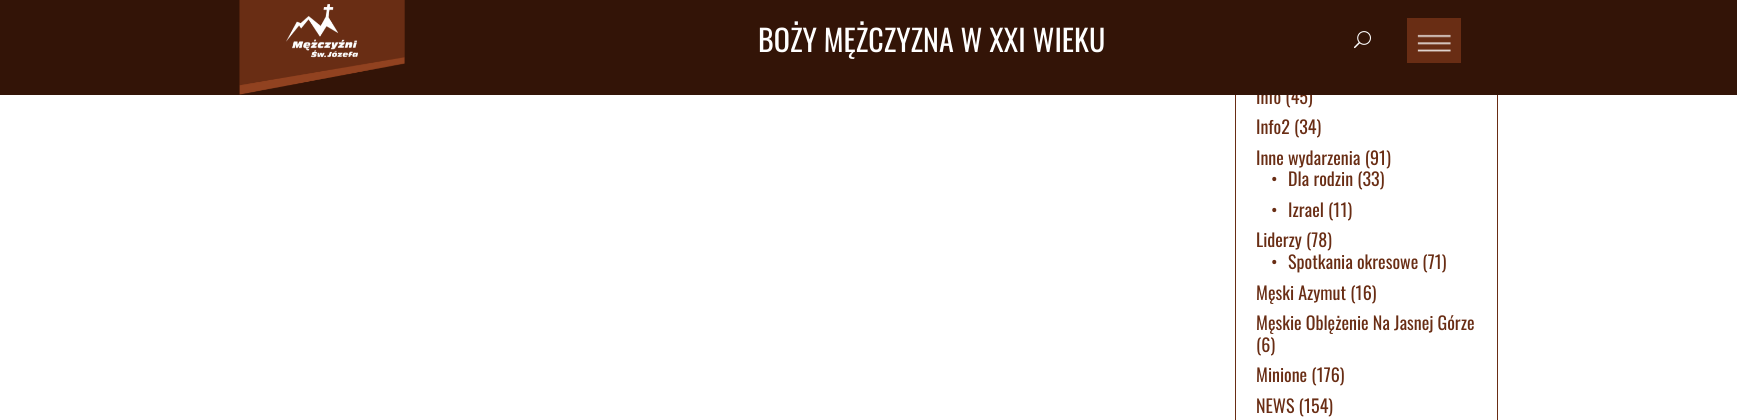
#include <cairo.h>
#include <math.h>
#include <stddef.h>


static void set_color(cairo_t *cr, unsigned color) {
    cairo_set_source_rgb(cr, (color >> 16) / 255.0, (color >> 8 & 255) / 255.0, (color & 255) / 255.0);
}

static void draw_text(cairo_t *cr, double x, double y, const char *s, const char *family, double size, int italic, int bold, unsigned color) {
    cairo_select_font_face(cr, family, italic ? CAIRO_FONT_SLANT_ITALIC : CAIRO_FONT_SLANT_NORMAL,
        bold ? CAIRO_FONT_WEIGHT_BOLD : CAIRO_FONT_WEIGHT_NORMAL);
    cairo_set_font_size(cr, size);
    set_color(cr, color);
    cairo_move_to(cr, x, y);
    cairo_show_text(cr, s);
}

static void fill_rect(cairo_t *cr, double x, double y, double w, double h, unsigned color) {
    set_color(cr, color);
    cairo_rectangle(cr, x, y, w, h);
    cairo_fill(cr);
}

static void draw_image(cairo_t *cr, const char *path, double x, double y, double w, double h) {
    cairo_surface_t *image = cairo_image_surface_create_from_png(path);
    cairo_save(cr);
    cairo_set_source_surface(cr, image, x, y);
    cairo_rectangle(cr, x, y, w, h);
    cairo_fill(cr);
    cairo_restore(cr);
    cairo_surface_destroy(image);
}

int main(void) {
    cairo_surface_t *surface = cairo_image_surface_create(CAIRO_FORMAT_RGB24, 1737, 420);
    cairo_t *cr = cairo_create(surface);
    cairo_font_options_t *options = cairo_font_options_create();
    cairo_font_options_set_hint_metrics(options, CAIRO_HINT_METRICS_OFF);
    cairo_font_options_set_hint_style(options, CAIRO_HINT_STYLE_NONE);
    cairo_set_font_options(cr, options);
    cairo_set_miter_limit(cr, 4);
    set_color(cr, 0xFFFFFF);
    cairo_paint(cr);
    cairo_rectangle(cr, 1235.5, -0.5, 262, 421);
    set_color(cr, 0x692D14);
    cairo_set_line_width(cr, 1);
    cairo_stroke(cr);
    draw_text(cr, 1256, 104, "Info (45)", "Oswald", 18, 0, 0, 0x692D14);
    fill_rect(cr, 0, 0, 1737, 95, 0x331407);
    draw_image(cr, "assets/img1.png", 239, 0, 166, 95);
    draw_text(cr, 758, 52, "BOŻY MĘŻCZYZNA W XXI WIEKU", "Oswald", 30, 0, 0, 0xFFFFFF);
    draw_image(cr, "assets/img2.png", 1354, 31, 17, 18);
    fill_rect(cr, 1407, 18, 54, 45, 0x692D14);
    draw_image(cr, "assets/img3.png", 1417, 34, 34, 18);
    draw_text(cr, 1256, 134, "Info2 (34)", "Oswald", 18, 0, 0, 0x692D14);
    draw_text(cr, 1256, 165, "Inne wydarzenia (91)", "Oswald", 18, 0, 0, 0x692D14);
    draw_text(cr, 1271, 186, "•", "Oswald", 18, 0, 0, 0x692D14);
    draw_text(cr, 1288, 186, "Dla rodzin (33)", "Oswald", 18, 0, 0, 0x692D14);
    draw_text(cr, 1271, 217, "•", "Oswald", 18, 0, 0, 0x692D14);
    draw_text(cr, 1288, 217, "Izrael (11)", "Oswald", 18, 0, 0, 0x692D14);
    draw_text(cr, 1256, 247, "Liderzy (78)", "Oswald", 18, 0, 0, 0x692D14);
    draw_text(cr, 1271, 269, "•", "Oswald", 18, 0, 0, 0x692D14);
    draw_text(cr, 1288, 269, "Spotkania okresowe (71)", "Oswald", 18, 0, 0, 0x692D14);
    draw_text(cr, 1256, 300, "Męski Azymut (16)", "Oswald", 18, 0, 0, 0x692D14);
    draw_text(cr, 1256, 330, "Męskie Oblężenie Na Jasnej Górze", "Oswald", 18, 0, 0, 0x692D14);
    draw_text(cr, 1256, 352, "(6)", "Oswald", 18, 0, 0, 0x692D14);
    draw_text(cr, 1256, 382, "Minione (176)", "Oswald", 18, 0, 0, 0x692D14);
    draw_text(cr, 1256, 413, "NEWS (154)", "Oswald", 18, 0, 0, 0x692D14);
    cairo_surface_write_to_png(surface, "output.png");
    cairo_font_options_destroy(options);
    cairo_destroy(cr);
    cairo_surface_destroy(surface);
    return 0;
}
